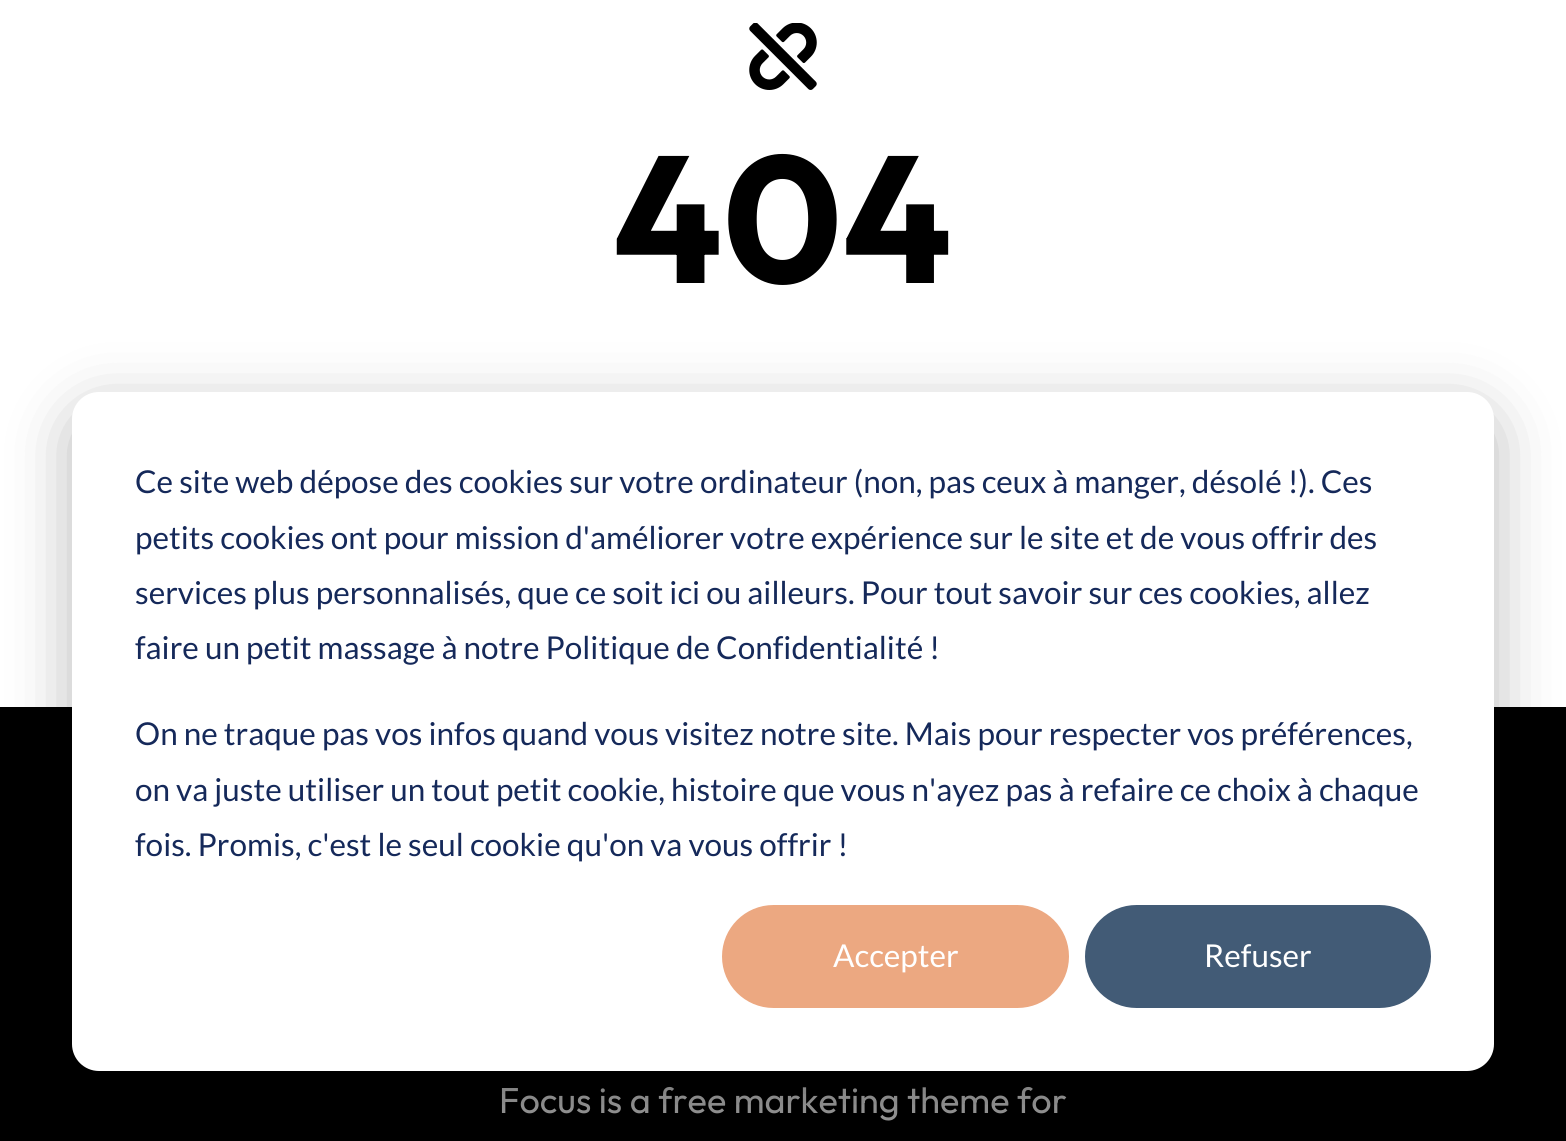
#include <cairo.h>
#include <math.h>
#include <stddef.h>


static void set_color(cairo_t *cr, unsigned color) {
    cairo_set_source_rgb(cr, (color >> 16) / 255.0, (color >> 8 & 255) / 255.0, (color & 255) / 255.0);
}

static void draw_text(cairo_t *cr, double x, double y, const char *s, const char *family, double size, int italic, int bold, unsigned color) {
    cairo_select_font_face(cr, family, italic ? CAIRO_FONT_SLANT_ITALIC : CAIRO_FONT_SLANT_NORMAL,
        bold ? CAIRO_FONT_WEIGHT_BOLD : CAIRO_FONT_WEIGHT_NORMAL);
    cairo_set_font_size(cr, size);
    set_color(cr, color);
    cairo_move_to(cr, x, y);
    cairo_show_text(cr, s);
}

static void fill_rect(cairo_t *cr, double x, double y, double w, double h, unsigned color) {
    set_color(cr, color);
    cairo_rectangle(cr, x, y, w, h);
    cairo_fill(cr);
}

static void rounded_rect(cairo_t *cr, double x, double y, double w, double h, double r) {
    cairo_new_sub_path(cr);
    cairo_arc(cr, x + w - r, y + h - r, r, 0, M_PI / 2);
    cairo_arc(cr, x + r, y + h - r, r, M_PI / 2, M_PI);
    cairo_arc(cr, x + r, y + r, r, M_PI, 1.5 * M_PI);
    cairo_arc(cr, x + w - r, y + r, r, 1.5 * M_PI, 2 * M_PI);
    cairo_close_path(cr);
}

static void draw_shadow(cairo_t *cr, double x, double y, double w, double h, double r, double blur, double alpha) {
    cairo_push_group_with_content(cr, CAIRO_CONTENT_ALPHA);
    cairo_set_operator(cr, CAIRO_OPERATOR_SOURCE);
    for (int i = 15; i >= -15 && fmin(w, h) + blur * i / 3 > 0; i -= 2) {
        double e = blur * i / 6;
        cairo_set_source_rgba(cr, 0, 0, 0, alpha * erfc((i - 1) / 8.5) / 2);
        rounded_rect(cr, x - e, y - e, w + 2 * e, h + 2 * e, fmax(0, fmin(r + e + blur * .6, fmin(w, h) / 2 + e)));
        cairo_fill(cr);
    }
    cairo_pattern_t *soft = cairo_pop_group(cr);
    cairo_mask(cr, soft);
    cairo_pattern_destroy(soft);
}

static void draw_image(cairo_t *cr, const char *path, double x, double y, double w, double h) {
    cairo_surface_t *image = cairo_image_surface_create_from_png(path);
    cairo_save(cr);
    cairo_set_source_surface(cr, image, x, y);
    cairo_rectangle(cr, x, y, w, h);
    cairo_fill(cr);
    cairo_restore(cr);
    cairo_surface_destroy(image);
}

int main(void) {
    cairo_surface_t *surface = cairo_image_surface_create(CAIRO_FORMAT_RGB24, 1566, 1141);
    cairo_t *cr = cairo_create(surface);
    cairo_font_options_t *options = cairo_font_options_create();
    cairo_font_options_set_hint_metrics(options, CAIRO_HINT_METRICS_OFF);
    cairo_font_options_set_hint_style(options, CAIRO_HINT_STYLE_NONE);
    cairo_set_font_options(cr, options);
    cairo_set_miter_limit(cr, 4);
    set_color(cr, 0xFFFFFF);
    cairo_paint(cr);
    draw_image(cr, "assets/img1.png", 749, 23, 68, 67);
    draw_text(cr, 613, 283, "404", "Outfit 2 Thin", 180, 0, 0, 0x000000);
    fill_rect(cr, 0, 707, 1566, 434, 0x000000);
    draw_text(cr, 499, 1113, "Focus is a free marketing theme for", "Outfit Thin", 36, 0, 0, 0x999999);
    set_color(cr, 0x000000);
    draw_shadow(cr, 72, 410, 1422, 679, 27, 31.5, 0.28);
    set_color(cr, 0xFFFFFF);
    rounded_rect(cr, 72, 392, 1422, 679, 27);
    cairo_fill(cr);
    draw_text(cr, 135, 493, "Ce site web dépose des cookies sur votre ordinateur (non, pas ceux à manger, désolé !). Ces", "Lato", 31.5, 0, 0, 0x15295A);
    draw_text(cr, 135, 549, "petits cookies ont pour mission d'améliorer votre expérience sur le site et de vous offrir des", "Lato", 31.5, 0, 0, 0x15295A);
    draw_text(cr, 135, 604, "services plus personnalisés, que ce soit ici ou ailleurs. Pour tout savoir sur ces cookies, allez", "Lato", 31.5, 0, 0, 0x15295A);
    draw_text(cr, 135, 659, "faire un petit massage à notre Politique de Confidentialité !", "Lato", 31.5, 0, 0, 0x15295A);
    draw_text(cr, 135, 745, "On ne traque pas vos infos quand vous visitez notre site. Mais pour respecter vos préférences,", "Lato", 31.5, 0, 0, 0x15295A);
    draw_text(cr, 135, 801, "on va juste utiliser un tout petit cookie, histoire que vous n'ayez pas à refaire ce choix à chaque", "Lato", 31.5, 0, 0, 0x15295A);
    draw_text(cr, 135, 856, "fois. Promis, c'est le seul cookie qu'on va vous offrir !", "Lato", 31.5, 0, 0, 0x15295A);
    set_color(cr, 0xECA881);
    rounded_rect(cr, 723, 906, 345, 101, 50.5);
    cairo_fill_preserve(cr);
    cairo_stroke(cr);
    draw_text(cr, 833, 967, "Accepter", "Lato", 31.5, 0, 0, 0xFFFFFF);
    set_color(cr, 0x425B76);
    rounded_rect(cr, 1086, 906, 344, 101, 50.5);
    cairo_fill_preserve(cr);
    cairo_stroke(cr);
    draw_text(cr, 1204, 967, "Refuser", "Lato", 31.5, 0, 0, 0xFFFFFF);
    cairo_surface_write_to_png(surface, "output.png");
    cairo_font_options_destroy(options);
    cairo_destroy(cr);
    cairo_surface_destroy(surface);
    return 0;
}
